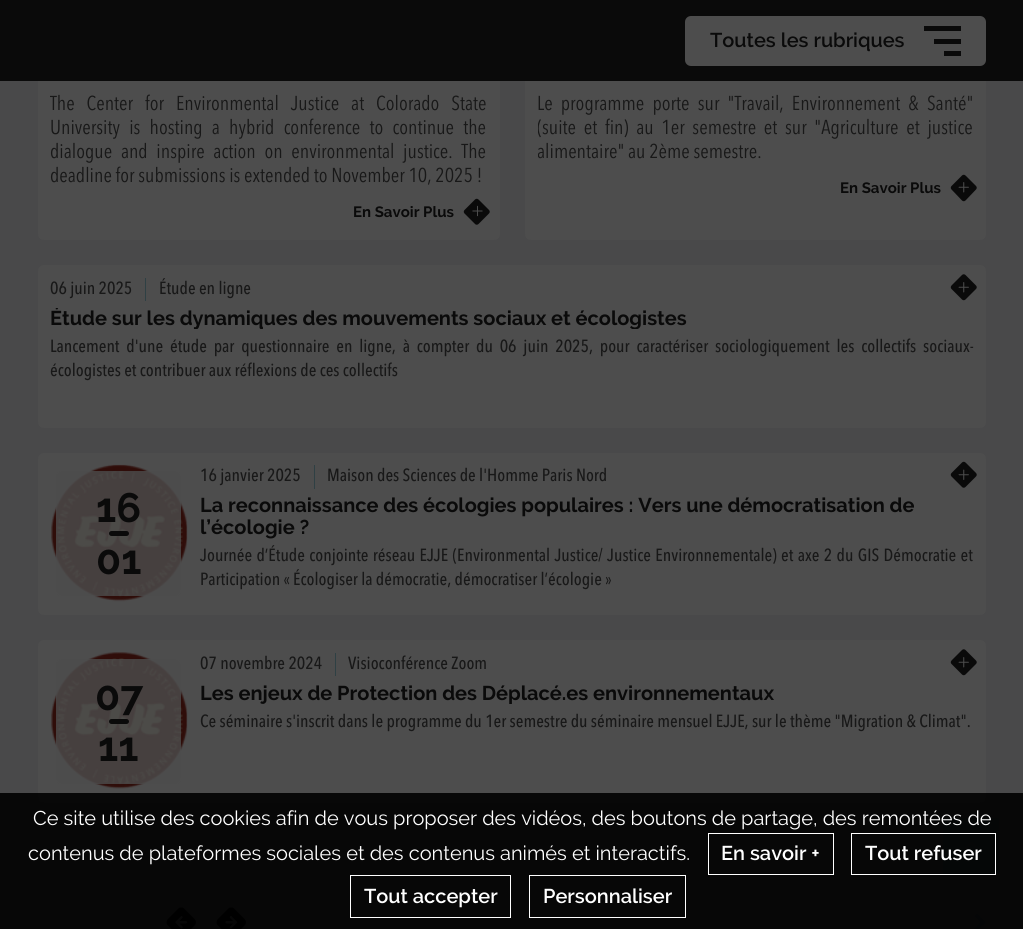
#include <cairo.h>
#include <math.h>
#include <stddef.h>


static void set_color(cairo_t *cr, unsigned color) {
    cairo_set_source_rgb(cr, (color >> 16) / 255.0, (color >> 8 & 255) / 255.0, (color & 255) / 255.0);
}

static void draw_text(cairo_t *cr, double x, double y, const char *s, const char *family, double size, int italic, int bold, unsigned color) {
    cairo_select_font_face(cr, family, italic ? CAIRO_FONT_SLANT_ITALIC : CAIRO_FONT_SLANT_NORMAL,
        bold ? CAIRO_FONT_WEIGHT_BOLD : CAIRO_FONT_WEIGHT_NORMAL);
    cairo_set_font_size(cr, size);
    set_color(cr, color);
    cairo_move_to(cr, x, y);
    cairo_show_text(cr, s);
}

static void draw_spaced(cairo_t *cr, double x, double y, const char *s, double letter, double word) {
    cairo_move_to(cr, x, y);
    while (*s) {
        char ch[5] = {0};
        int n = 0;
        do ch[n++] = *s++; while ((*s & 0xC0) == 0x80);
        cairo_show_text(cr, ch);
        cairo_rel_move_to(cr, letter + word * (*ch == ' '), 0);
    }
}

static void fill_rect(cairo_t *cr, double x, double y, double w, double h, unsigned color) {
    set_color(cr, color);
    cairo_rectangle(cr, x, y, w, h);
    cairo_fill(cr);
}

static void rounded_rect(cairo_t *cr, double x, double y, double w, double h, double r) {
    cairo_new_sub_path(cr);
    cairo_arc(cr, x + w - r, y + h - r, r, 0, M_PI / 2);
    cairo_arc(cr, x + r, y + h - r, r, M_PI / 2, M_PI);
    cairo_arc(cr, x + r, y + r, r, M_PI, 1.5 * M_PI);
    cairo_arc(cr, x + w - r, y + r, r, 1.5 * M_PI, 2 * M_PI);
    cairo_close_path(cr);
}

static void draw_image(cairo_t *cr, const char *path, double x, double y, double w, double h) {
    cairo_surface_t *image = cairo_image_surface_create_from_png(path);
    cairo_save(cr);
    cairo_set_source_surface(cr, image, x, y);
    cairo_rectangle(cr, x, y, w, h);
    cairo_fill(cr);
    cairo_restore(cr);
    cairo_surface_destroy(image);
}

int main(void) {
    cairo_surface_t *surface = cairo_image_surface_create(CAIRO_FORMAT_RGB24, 1023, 929);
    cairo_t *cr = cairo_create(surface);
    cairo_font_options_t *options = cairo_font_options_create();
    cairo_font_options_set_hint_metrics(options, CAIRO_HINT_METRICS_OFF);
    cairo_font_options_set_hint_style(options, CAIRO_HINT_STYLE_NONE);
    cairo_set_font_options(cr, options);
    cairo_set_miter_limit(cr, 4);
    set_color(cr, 0x49494A);
    cairo_paint(cr);
    set_color(cr, 0x4D4D4D);
    rounded_rect(cr, 38, -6, 462, 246, 6);
    cairo_fill(cr);
    rounded_rect(cr, 525, -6, 461, 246, 6);
    cairo_fill(cr);
    fill_rect(cr, 0, 0, 1023, 81, 0x0A0A0A);
    set_color(cr, 0x4D4D4D);
    rounded_rect(cr, 685, 16, 301, 50, 6);
    cairo_fill(cr);
    draw_text(cr, 710, 47, "Toutes les rubriques", "Raleway SemiBold", 20, 0, 0, 0x0A0A0A);
    fill_rect(cr, 924, 26, 37, 5, 0x0A0A0A);
    fill_rect(cr, 934, 39, 27, 5, 0x0A0A0A);
    fill_rect(cr, 944, 51, 17, 5, 0x0A0A0A);
    cairo_select_font_face(cr, "Avenir Next", CAIRO_FONT_SLANT_NORMAL, CAIRO_FONT_WEIGHT_NORMAL);
    set_color(cr, 0x181818);
    draw_spaced(cr, 50, 110, "The Center for Environmental Justice at Colorado State", 0, 8.25);
    draw_spaced(cr, 50, 134, "University is hosting a hybrid conference to continue the", 0, 5.5);
    draw_spaced(cr, 50, 158, "dialogue and inspire action on environmental justice. The", 0, 5);
    draw_text(cr, 50, 182, "deadline for submissions is extended to November 10, 2025 !", "Avenir Next", 20, 0, 0, 0x181818);
    draw_text(cr, 353, 217, "En Savoir Plus", "Raleway", 15, 0, 1, 0x0A0A0A);
    cairo_new_path(cr);
    cairo_move_to(cr, 478.5, 199.5);
    cairo_line_to(cr, 489, 210);
    cairo_curve_to(cr, 490, 211, 490, 212.5, 489, 213.5);
    cairo_line_to(cr, 478.5, 224);
    cairo_curve_to(cr, 477.5, 225, 476, 225, 475, 224);
    cairo_line_to(cr, 464.5, 213.5);
    cairo_curve_to(cr, 463.5, 212.5, 463.5, 211, 464.5, 210);
    cairo_line_to(cr, 475, 199.5);
    cairo_curve_to(cr, 476, 198.5, 477.5, 198.5, 478.5, 199.5);
    cairo_close_path(cr);
    cairo_fill(cr);
    draw_image(cr, "assets/img1.png", 472, 205, 11, 12);
    cairo_select_font_face(cr, "Avenir Next", CAIRO_FONT_SLANT_NORMAL, CAIRO_FONT_WEIGHT_NORMAL);
    cairo_set_font_size(cr, 20);
    set_color(cr, 0x181818);
    draw_spaced(cr, 537, 110, "Le programme porte sur \"Travail, Environnement & Santé\"", 0, 4.5);
    cairo_save(cr);
    cairo_rectangle(cr, 538, 94, 436, 71);
    cairo_clip(cr);
    draw_spaced(cr, 537, 134, "(suite et fin) au 1er semestre et sur \"Agriculture et justice", 0, 4);
    draw_text(cr, 537, 158, "alimentaire\" au 2ème semestre.", "Avenir Next", 20, 0, 0, 0x181818);
    cairo_restore(cr);
    draw_text(cr, 840, 193, "En Savoir Plus", "Raleway", 15, 0, 1, 0x0A0A0A);
    cairo_new_path(cr);
    cairo_move_to(cr, 965.5, 175.5);
    cairo_line_to(cr, 976, 186);
    cairo_curve_to(cr, 977, 187, 977, 188.5, 976, 189.5);
    cairo_line_to(cr, 965.5, 200.5);
    cairo_curve_to(cr, 964.5, 201.5, 963, 201.5, 962, 200.5);
    cairo_line_to(cr, 951.5, 189.5);
    cairo_curve_to(cr, 950.5, 188.5, 950.5, 187, 951.5, 186);
    cairo_line_to(cr, 962, 175.5);
    cairo_curve_to(cr, 963, 174.5, 964.5, 174.5, 965.5, 175.5);
    cairo_close_path(cr);
    cairo_fill(cr);
    draw_image(cr, "assets/img2.png", 958, 182, 11, 11);
    set_color(cr, 0x4D4D4D);
    rounded_rect(cr, 38, 265, 948, 163, 6);
    cairo_fill(cr);
    draw_text(cr, 50, 294, "06 juin 2025", "Avenir Next Medium", 17.5, 0, 0, 0x181818);
    fill_rect(cr, 145, 278, 1, 23, 0x2F4044);
    draw_text(cr, 159, 294, "Étude en ligne", "Avenir Next Medium", 17.5, 0, 0, 0x181818);
    cairo_save(cr);
    cairo_rectangle(cr, 50, 308, 898, 21);
    cairo_clip(cr);
    draw_text(cr, 50, 325, "Étude sur les dynamiques des mouvements sociaux et écologistes", "Raleway", 20, 0, 1, 0x0A0A0A);
    cairo_restore(cr);
    set_color(cr, 0x0A0A0A);
    cairo_new_path(cr);
    cairo_move_to(cr, 965.5, 275);
    cairo_line_to(cr, 976, 285.5);
    cairo_curve_to(cr, 977, 286.5, 977, 288, 976, 289);
    cairo_line_to(cr, 965.5, 299.5);
    cairo_curve_to(cr, 964.5, 300.5, 963, 300.5, 962, 299.5);
    cairo_line_to(cr, 951.5, 289);
    cairo_curve_to(cr, 950.5, 288, 950.5, 286.5, 951.5, 285.5);
    cairo_line_to(cr, 962, 275);
    cairo_curve_to(cr, 963, 274, 964.5, 274, 965.5, 275);
    cairo_close_path(cr);
    cairo_fill(cr);
    draw_image(cr, "assets/img2.png", 958, 282, 11, 11);
    set_color(cr, 0x181818);
    draw_spaced(cr, 50, 352, "Lancement d'une étude par questionnaire en ligne, à compter du 06 juin 2025, pour caractériser sociologiquement les collectifs sociaux-", 0, 3.5);
    draw_text(cr, 50, 376, "écologistes et contribuer aux réflexions de ces collectifs", "Avenir Next Medium", 17.5, 0, 0, 0x181818);
    set_color(cr, 0x4D4D4D);
    rounded_rect(cr, 38, 453, 948, 162, 6);
    cairo_fill(cr);
    draw_image(cr, "assets/img3.png", 51, 464, 137, 138);
    cairo_set_source_rgba(cr, 0.302, 0.302, 0.302, 0.8);
    rounded_rect(cr, 56, 471, 125, 125, 6);
    cairo_fill(cr);
    draw_text(cr, 96, 522, "16", "Raleway", 41, 0, 1, 0x0A0A0A);
    rounded_rect(cr, 109, 531, 20, 5, 2.5);
    cairo_fill(cr);
    draw_text(cr, 96, 574, "01", "Raleway", 41, 0, 1, 0x0A0A0A);
    draw_text(cr, 200, 481, "16 janvier 2025", "Avenir Next Medium", 17.5, 0, 0, 0x181818);
    fill_rect(cr, 314, 465, 1, 24, 0x2F4044);
    draw_text(cr, 327, 481, "Maison des Sciences de l'Homme Paris Nord", "Avenir Next Medium", 17.5, 0, 0, 0x181818);
    draw_text(cr, 200, 512, "La reconnaissance des écologies populaires : Vers une démocratisation de", "Raleway", 20, 0, 1, 0x0A0A0A);
    draw_text(cr, 200, 534, "l’écologie ?", "Raleway", 20, 0, 1, 0x0A0A0A);
    cairo_new_path(cr);
    cairo_move_to(cr, 965.5, 462.5);
    cairo_line_to(cr, 976, 473);
    cairo_curve_to(cr, 977, 474, 977, 475.5, 976, 476.5);
    cairo_line_to(cr, 965.5, 487);
    cairo_curve_to(cr, 964.5, 488, 963, 488, 962, 487);
    cairo_line_to(cr, 951.5, 476.5);
    cairo_curve_to(cr, 950.5, 475.5, 950.5, 474, 951.5, 473);
    cairo_line_to(cr, 962, 462.5);
    cairo_curve_to(cr, 963, 461.5, 964.5, 461.5, 965.5, 462.5);
    cairo_close_path(cr);
    cairo_fill(cr);
    draw_image(cr, "assets/img4.png", 958, 469, 11, 11);
    cairo_select_font_face(cr, "Avenir Next Medium", CAIRO_FONT_SLANT_NORMAL, CAIRO_FONT_WEIGHT_NORMAL);
    cairo_set_font_size(cr, 17.5);
    set_color(cr, 0x181818);
    draw_spaced(cr, 200, 561, "Journée d’Étude conjointe réseau EJJE (Environmental Justice/ Justice Environnementale) et axe 2 du GIS Démocratie et", 0, 1);
    draw_text(cr, 200, 585, "Participation « Écologiser la démocratie, démocratiser l’écologie »", "Avenir Next Medium", 17.5, 0, 0, 0x181818);
    set_color(cr, 0x4D4D4D);
    rounded_rect(cr, 38, 640, 948, 163, 6);
    cairo_fill(cr);
    draw_image(cr, "assets/img5.png", 51, 652, 137, 137);
    cairo_set_source_rgba(cr, 0.302, 0.302, 0.302, 0.8);
    rounded_rect(cr, 56, 659, 125, 125, 6);
    cairo_fill(cr);
    draw_text(cr, 95, 710, "07", "Raleway", 41, 0, 1, 0x0A0A0A);
    rounded_rect(cr, 109, 719, 20, 5, 2.5);
    cairo_fill(cr);
    draw_text(cr, 98, 761, "11", "Raleway", 41, 0, 1, 0x0A0A0A);
    draw_text(cr, 200, 669, "07 novembre 2024", "Avenir Next Medium", 17.5, 0, 0, 0x181818);
    fill_rect(cr, 335, 653, 1, 23, 0x2F4044);
    draw_text(cr, 348, 669, "Visioconférence Zoom", "Avenir Next Medium", 17.5, 0, 0, 0x181818);
    cairo_save(cr);
    cairo_rectangle(cr, 200, 683, 748, 21);
    cairo_clip(cr);
    draw_text(cr, 200, 700, "Les enjeux de Protection des Déplacé.es environnementaux", "Raleway", 20, 0, 1, 0x0A0A0A);
    cairo_restore(cr);
    set_color(cr, 0x0A0A0A);
    cairo_new_path(cr);
    cairo_move_to(cr, 965.5, 650);
    cairo_line_to(cr, 976, 660.5);
    cairo_curve_to(cr, 977, 661.5, 977, 663, 976, 664);
    cairo_line_to(cr, 965.5, 674.5);
    cairo_curve_to(cr, 964.5, 675.5, 963, 675.5, 962, 674.5);
    cairo_line_to(cr, 951.5, 664);
    cairo_curve_to(cr, 950.5, 663, 950.5, 661.5, 951.5, 660.5);
    cairo_line_to(cr, 962, 650);
    cairo_curve_to(cr, 963, 649, 964.5, 649, 965.5, 650);
    cairo_close_path(cr);
    cairo_fill(cr);
    draw_image(cr, "assets/img2.png", 958, 657, 11, 11);
    draw_text(cr, 200, 727, "Ce séminaire s'inscrit dans le programme du 1er semestre du séminaire mensuel EJJE, sur le thème \"Migration & Climat\".", "Avenir Next Medium", 17.5, 0, 0, 0x181818);
    draw_image(cr, "assets/img6.png", 166, 907, 30, 22);
    draw_image(cr, "assets/img7.png", 216, 907, 30, 22);
    set_color(cr, 0x2F4044);
    cairo_new_path(cr);
    cairo_move_to(cr, 977, 913.5);
    cairo_line_to(cr, 985.5, 922.5);
    cairo_line_to(cr, 983, 925);
    cairo_line_to(cr, 974.5, 916);
    cairo_close_path(cr);
    cairo_fill(cr);
    cairo_new_path(cr);
    cairo_move_to(cr, 974.5, 928.5);
    cairo_line_to(cr, 983, 919.5);
    cairo_line_to(cr, 985.5, 922.5);
    cairo_line_to(cr, 977, 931);
    cairo_close_path(cr);
    cairo_fill(cr);
    fill_rect(cr, 943, 818, 56, 56, 0x374346);
    draw_image(cr, "assets/img8.png", 964, 842, 14, 8);
    cairo_set_source_rgba(cr, 0, 0, 0, 0.9);
    cairo_rectangle(cr, 0, 793, 1023, 136);
    cairo_fill(cr);
    draw_text(cr, 33, 825, "Ce site utilise des cookies afin de vous proposer des vidéos, des boutons de partage, des remontées de", "Raleway", 20, 0, 0, 0xFFFFFF);
    draw_text(cr, 28, 860, "contenus de plateformes sociales et des contenus animés et interactifs.", "Raleway", 20, 0, 0, 0xFFFFFF);
    cairo_rectangle(cr, 708.5, 833.5, 125, 41);
    cairo_set_line_width(cr, 1);
    cairo_stroke(cr);
    draw_text(cr, 721, 860, "En savoir +", "Raleway SemiBold", 20, 0, 0, 0xFFFFFF);
    cairo_rectangle(cr, 851.5, 833.5, 144, 41);
    cairo_stroke(cr);
    draw_text(cr, 865, 860, "Tout refuser", "Raleway SemiBold", 20, 0, 0, 0xFFFFFF);
    cairo_rectangle(cr, 350.5, 875.5, 160, 42);
    cairo_stroke(cr);
    draw_text(cr, 364, 903, "Tout accepter", "Raleway SemiBold", 20, 0, 0, 0xFFFFFF);
    cairo_rectangle(cr, 529.5, 875.5, 156, 42);
    cairo_stroke(cr);
    draw_text(cr, 543, 903, "Personnaliser", "Raleway SemiBold", 20, 0, 0, 0xFFFFFF);
    cairo_surface_write_to_png(surface, "output.png");
    cairo_font_options_destroy(options);
    cairo_destroy(cr);
    cairo_surface_destroy(surface);
    return 0;
}
